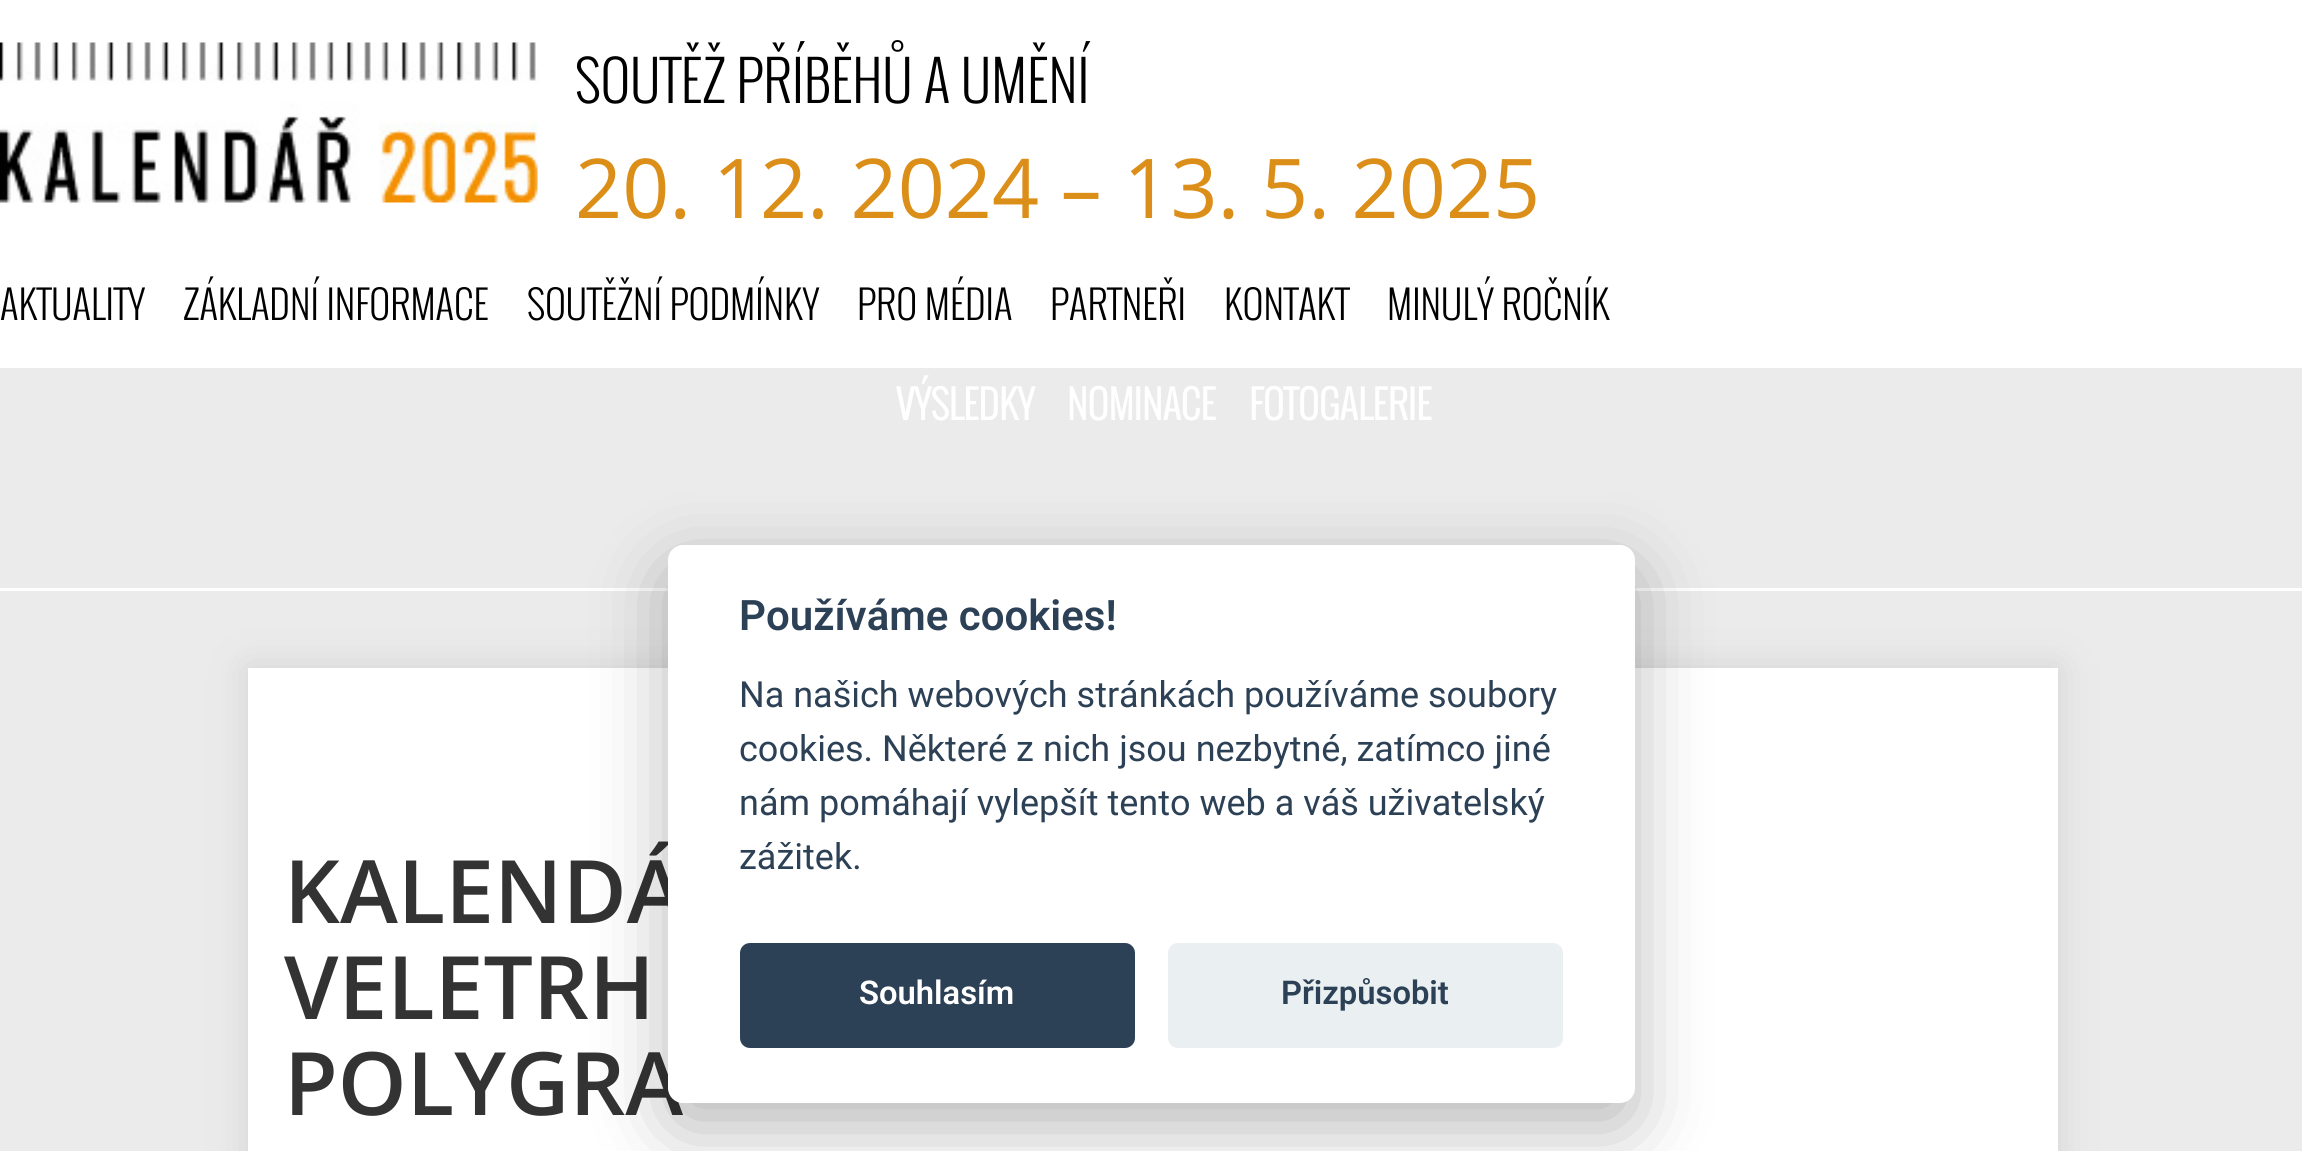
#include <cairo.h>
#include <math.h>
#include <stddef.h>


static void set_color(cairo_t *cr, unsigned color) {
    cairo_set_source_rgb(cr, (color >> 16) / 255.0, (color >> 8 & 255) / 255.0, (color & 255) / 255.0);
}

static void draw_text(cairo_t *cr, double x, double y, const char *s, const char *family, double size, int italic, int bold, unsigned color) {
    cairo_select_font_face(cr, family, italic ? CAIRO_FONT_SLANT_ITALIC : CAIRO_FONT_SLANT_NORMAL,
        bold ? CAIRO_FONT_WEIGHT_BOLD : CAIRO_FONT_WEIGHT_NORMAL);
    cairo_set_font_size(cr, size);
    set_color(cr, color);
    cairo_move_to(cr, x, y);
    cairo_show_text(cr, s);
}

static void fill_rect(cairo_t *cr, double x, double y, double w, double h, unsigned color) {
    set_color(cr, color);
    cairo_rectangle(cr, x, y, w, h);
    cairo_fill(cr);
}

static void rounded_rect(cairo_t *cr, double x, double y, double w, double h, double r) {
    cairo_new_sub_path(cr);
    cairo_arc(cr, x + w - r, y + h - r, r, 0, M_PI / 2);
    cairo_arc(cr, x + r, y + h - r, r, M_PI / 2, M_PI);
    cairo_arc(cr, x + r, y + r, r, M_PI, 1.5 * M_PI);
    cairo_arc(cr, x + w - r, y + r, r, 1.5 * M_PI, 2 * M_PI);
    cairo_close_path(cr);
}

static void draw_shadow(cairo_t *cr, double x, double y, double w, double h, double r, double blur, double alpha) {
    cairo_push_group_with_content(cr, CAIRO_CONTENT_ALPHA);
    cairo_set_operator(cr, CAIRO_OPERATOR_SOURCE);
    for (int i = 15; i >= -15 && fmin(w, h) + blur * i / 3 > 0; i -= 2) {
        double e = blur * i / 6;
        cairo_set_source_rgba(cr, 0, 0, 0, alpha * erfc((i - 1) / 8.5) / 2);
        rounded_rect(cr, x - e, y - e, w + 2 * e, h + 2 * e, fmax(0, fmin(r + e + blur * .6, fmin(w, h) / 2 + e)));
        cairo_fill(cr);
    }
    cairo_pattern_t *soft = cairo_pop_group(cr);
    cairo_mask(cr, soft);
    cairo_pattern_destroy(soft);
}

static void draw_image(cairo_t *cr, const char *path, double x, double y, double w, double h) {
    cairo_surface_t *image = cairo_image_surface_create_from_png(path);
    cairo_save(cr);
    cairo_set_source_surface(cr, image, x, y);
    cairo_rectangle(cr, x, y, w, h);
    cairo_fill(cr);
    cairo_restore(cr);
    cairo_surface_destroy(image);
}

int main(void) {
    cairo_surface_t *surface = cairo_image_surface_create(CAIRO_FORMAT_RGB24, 2302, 1151);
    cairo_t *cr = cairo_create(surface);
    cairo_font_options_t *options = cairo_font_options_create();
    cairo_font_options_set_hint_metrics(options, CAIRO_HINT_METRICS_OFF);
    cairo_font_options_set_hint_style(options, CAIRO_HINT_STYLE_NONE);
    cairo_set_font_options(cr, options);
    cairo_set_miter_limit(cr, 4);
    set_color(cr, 0xEBEBEB);
    cairo_paint(cr);
    fill_rect(cr, 0, 0, 2302, 368, 0xFFFFFF);
    draw_text(cr, 575, 103, "SOUTĚŽ PŘÍBĚHŮ A UMĚNÍ", "Oswald Light", 55, 0, 0, 0x000000);
    draw_text(cr, 575, 218, "20. 12. 2024 – 13. 5. 2025", "Open Sans", 82.5, 0, 0, 0xDB8E18);
    draw_text(cr, 0, 320, "AKTUALITY", "Oswald Light", 38.75, 0, 0, 0x000000);
    draw_text(cr, 183, 320, "ZÁKLADNÍ INFORMACE", "Oswald Light", 38.75, 0, 0, 0x000000);
    draw_text(cr, 527, 320, "SOUTĚŽNÍ PODMÍNKY", "Oswald Light", 38.75, 0, 0, 0x000000);
    draw_text(cr, 857, 320, "PRO MÉDIA", "Oswald Light", 38.75, 0, 0, 0x000000);
    draw_text(cr, 1050, 320, "PARTNEŘI", "Oswald Light", 38.75, 0, 0, 0x000000);
    draw_text(cr, 1224, 320, "KONTAKT", "Oswald Light", 38.75, 0, 0, 0x000000);
    draw_text(cr, 1387, 320, "MINULÝ ROČNÍK", "Oswald Light", 38.75, 0, 0, 0x000000);
    draw_image(cr, "assets/img1.png", 0, 42, 538, 161);
    draw_text(cr, 896, 420, "VÝSLEDKY", "Oswald", 38.75, 0, 1, 0xFFFFFF);
    draw_text(cr, 1067, 420, "NOMINACE", "Oswald", 38.75, 0, 1, 0xFFFFFF);
    draw_text(cr, 1249, 420, "FOTOGALERIE", "Oswald", 38.75, 0, 1, 0xFFFFFF);
    fill_rect(cr, 0, 588, 2302, 3, 0xFFFFFF);
    set_color(cr, 0xD3D3D3);
    draw_shadow(cr, 248, 668, 1810, 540, 0, 19, 1);
    fill_rect(cr, 248, 668, 1810, 483, 0xFFFFFF);
    draw_text(cr, 284, 923, "KALENDÁ", "Open Sans SemiBold", 87.5, 0, 0, 0x333333);
    draw_text(cr, 284, 1019, "VELETRH", "Open Sans SemiBold", 87.5, 0, 0, 0x333333);
    draw_text(cr, 284, 1115, "POLYGRA", "Open Sans SemiBold", 87.5, 0, 0, 0x333333);
    set_color(cr, 0x020203);
    draw_shadow(cr, 668, 570, 967, 558, 15, 37.5, 0.28);
    set_color(cr, 0xFFFFFF);
    rounded_rect(cr, 668, 545, 967, 558, 15);
    cairo_fill(cr);
    draw_text(cr, 739, 630, "Používáme cookies!", "Roboto SemiBold", 42, 0, 0, 0x2D4156);
    draw_text(cr, 739, 707, "Na našich webových stránkách používáme soubory", "Roboto", 36, 0, 0, 0x2D4156);
    draw_text(cr, 739, 761, "cookies. Některé z nich jsou nezbytné, zatímco jiné", "Roboto", 36, 0, 0, 0x2D4156);
    draw_text(cr, 739, 815, "nám pomáhají vylepšít tento web a váš uživatelský", "Roboto", 36, 0, 0, 0x2D4156);
    draw_text(cr, 739, 869, "zážitek.", "Roboto", 36, 0, 0, 0x2D4156);
    rounded_rect(cr, 740, 943, 395, 105, 10);
    cairo_fill(cr);
    draw_text(cr, 859, 1004, "Souhlasím", "Roboto SemiBold", 32.75, 0, 0, 0xFFFFFF);
    set_color(cr, 0xEAEFF2);
    rounded_rect(cr, 1168, 943, 395, 105, 10);
    cairo_fill(cr);
    draw_text(cr, 1281, 1004, "Přizpůsobit", "Roboto SemiBold", 32.75, 0, 0, 0x2D4156);
    cairo_surface_write_to_png(surface, "output.png");
    cairo_font_options_destroy(options);
    cairo_destroy(cr);
    cairo_surface_destroy(surface);
    return 0;
}
